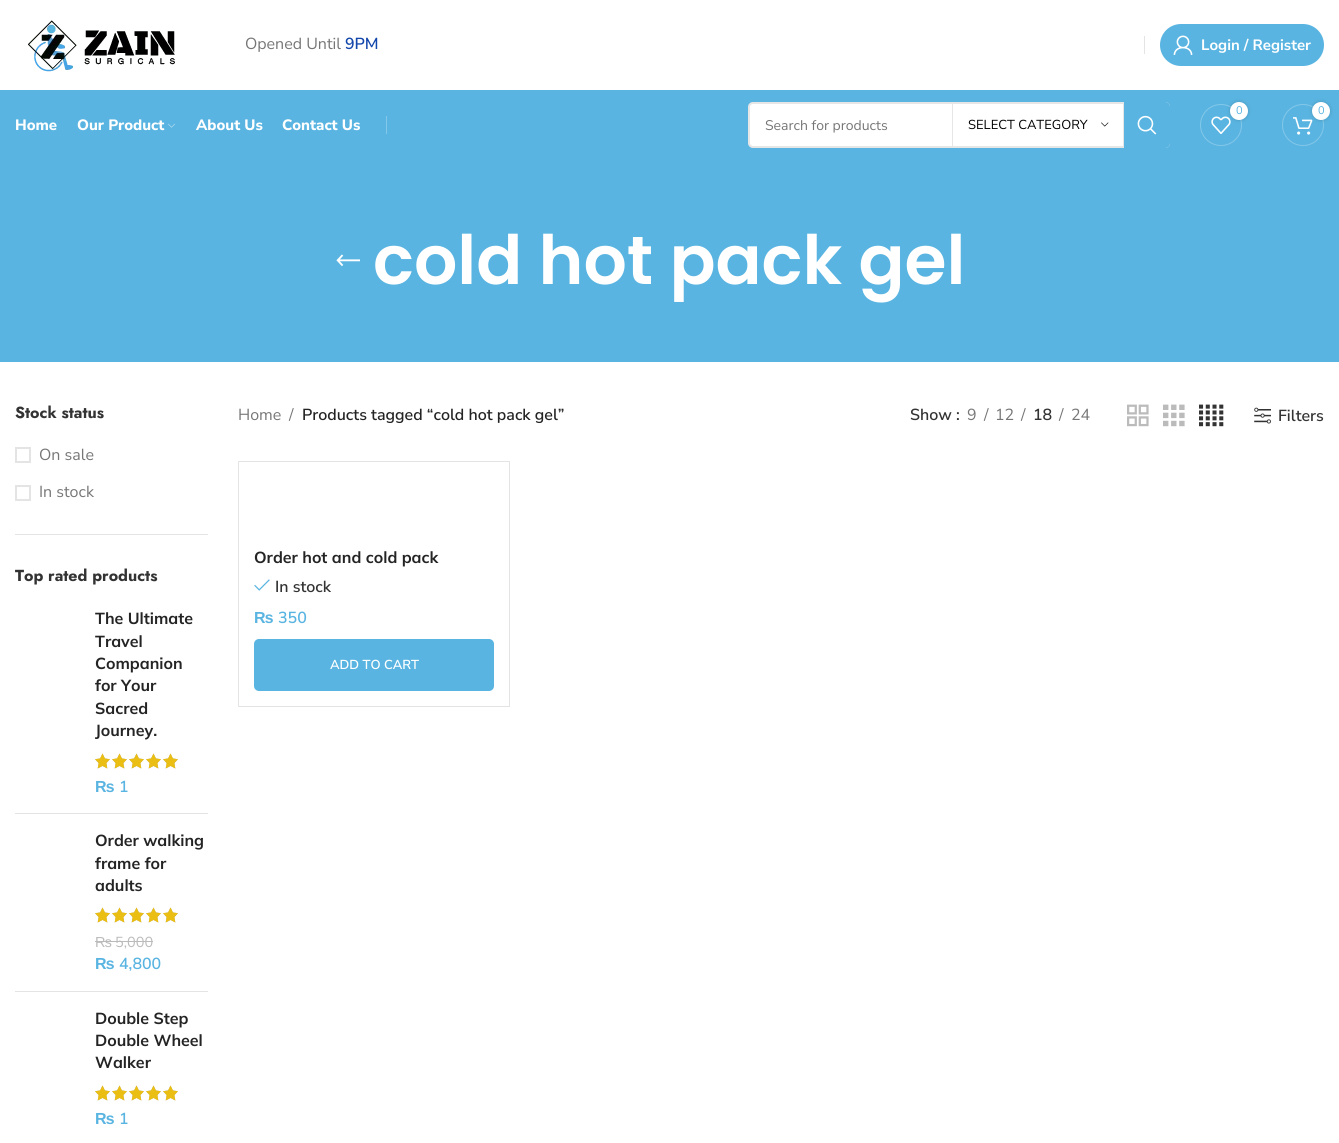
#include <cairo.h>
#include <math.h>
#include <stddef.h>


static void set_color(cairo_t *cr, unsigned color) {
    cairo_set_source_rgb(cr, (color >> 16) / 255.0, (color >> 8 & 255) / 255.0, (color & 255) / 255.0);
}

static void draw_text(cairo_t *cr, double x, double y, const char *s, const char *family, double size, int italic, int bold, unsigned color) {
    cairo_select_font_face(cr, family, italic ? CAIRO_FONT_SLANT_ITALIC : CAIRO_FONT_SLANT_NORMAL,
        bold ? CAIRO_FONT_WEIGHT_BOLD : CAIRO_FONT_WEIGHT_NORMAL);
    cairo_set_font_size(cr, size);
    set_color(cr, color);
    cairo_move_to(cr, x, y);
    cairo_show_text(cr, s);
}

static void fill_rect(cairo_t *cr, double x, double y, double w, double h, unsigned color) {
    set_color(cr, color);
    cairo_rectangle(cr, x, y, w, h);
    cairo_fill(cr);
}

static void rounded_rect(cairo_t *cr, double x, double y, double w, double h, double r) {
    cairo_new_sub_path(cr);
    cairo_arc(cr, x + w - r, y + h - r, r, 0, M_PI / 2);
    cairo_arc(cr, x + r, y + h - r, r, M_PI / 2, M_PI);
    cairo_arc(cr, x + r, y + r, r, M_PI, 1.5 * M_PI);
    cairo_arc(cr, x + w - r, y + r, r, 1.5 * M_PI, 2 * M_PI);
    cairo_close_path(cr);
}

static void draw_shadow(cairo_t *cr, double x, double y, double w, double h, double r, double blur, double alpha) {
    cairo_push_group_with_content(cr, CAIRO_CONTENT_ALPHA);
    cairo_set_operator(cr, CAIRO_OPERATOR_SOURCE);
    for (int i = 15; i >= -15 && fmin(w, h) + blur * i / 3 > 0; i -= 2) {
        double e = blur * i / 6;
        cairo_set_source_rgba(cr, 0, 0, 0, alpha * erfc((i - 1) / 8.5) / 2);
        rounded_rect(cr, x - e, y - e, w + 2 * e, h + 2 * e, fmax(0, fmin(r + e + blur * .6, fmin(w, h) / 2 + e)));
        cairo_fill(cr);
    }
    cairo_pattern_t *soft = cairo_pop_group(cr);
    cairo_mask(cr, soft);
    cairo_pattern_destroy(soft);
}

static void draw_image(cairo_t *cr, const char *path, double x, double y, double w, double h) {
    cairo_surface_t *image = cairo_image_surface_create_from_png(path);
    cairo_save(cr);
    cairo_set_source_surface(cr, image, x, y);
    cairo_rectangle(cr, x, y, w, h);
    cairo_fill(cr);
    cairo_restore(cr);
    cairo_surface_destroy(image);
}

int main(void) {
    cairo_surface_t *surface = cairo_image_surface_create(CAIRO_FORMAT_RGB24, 1339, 1143);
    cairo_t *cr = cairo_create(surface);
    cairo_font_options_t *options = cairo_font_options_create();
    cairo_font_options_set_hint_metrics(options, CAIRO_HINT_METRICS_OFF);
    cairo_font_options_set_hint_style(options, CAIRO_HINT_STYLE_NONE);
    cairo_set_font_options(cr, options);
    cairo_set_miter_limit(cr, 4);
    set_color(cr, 0xFFFFFF);
    cairo_paint(cr);
    draw_image(cr, "assets/img1.png", 28, 20, 147, 52);
    draw_text(cr, 245, 49, "Opened Until", "Nunito Sans", 16, 0, 0, 0x767676);
    draw_text(cr, 345, 49, "9PM", "Nunito Sans SemiBold", 16, 0, 0, 0x1246AB);
    fill_rect(cr, 1144, 36, 1, 18, 0xE4E4E4);
    set_color(cr, 0x59B4E1);
    rounded_rect(cr, 1160, 24, 164, 42, 21);
    cairo_fill(cr);
    draw_image(cr, "assets/img2.png", 1173, 35, 20, 20);
    draw_text(cr, 1201, 50, "Login / Register", "Nunito Sans", 15, 0, 1, 0xFFFFFF);
    fill_rect(cr, 0, 90, 1339, 272, 0x59B4E1);
    draw_text(cr, 15, 130, "Home", "Nunito Sans ExtraBold", 15, 0, 0, 0xFFFFFF);
    draw_text(cr, 77, 130, "Our Product", "Nunito Sans ExtraBold", 15, 0, 0, 0xFFFFFF);
    draw_image(cr, "assets/img3.png", 168, 123, 7, 5);
    draw_text(cr, 196, 130, "About Us", "Nunito Sans ExtraBold", 15, 0, 0, 0xFFFFFF);
    draw_text(cr, 282, 130, "Contact Us", "Nunito Sans ExtraBold", 15, 0, 0, 0xFFFFFF);
    fill_rect(cr, 386, 116, 1, 18, 0x83C7E9);
    cairo_new_path(cr);
    cairo_arc(cr, 1221, 125, 20.5, 0, 2 * M_PI);
    cairo_set_line_width(cr, 1);
    cairo_stroke(cr);
    draw_image(cr, "assets/img4.png", 1211, 116, 20, 18);
    set_color(cr, 0x000000);
    draw_shadow(cr, 1230, 102, 18, 18, 9, 2, 0.17);
    set_color(cr, 0xFFFFFF);
    cairo_arc(cr, 1239, 111, 9, 0, 2 * M_PI);
    cairo_fill(cr);
    draw_text(cr, 1236, 114, "0", "Nunito Sans", 11, 0, 0, 0x59B4E1);
    cairo_new_path(cr);
    cairo_arc(cr, 1303, 125, 20.5, 0, 2 * M_PI);
    set_color(cr, 0x83C7E9);
    cairo_stroke(cr);
    draw_image(cr, "assets/img5.png", 1293, 117, 20, 18);
    set_color(cr, 0x000000);
    draw_shadow(cr, 1312, 102, 18, 18, 9, 2, 0.17);
    set_color(cr, 0xFFFFFF);
    cairo_arc(cr, 1321, 111, 9, 0, 2 * M_PI);
    cairo_fill(cr);
    draw_text(cr, 1318, 114, "0", "Nunito Sans", 11, 0, 0, 0x59B4E1);
    set_color(cr, 0xFFFFFF);
    rounded_rect(cr, 748, 102, 422, 46, 5);
    cairo_fill(cr);
    rounded_rect(cr, 749, 103, 420, 44, 4);
    cairo_set_source_rgba(cr, 0, 0, 0, 0.1);
    cairo_set_line_width(cr, 2);
    cairo_stroke(cr);
    draw_text(cr, 765, 130, "Search for products", "Nunito Sans", 14, 0, 0, 0x767676);
    fill_rect(cr, 1123, 104, 1, 42, 0xE6E6E6);
    fill_rect(cr, 952, 104, 1, 42, 0xE6E6E6);
    draw_text(cr, 968, 129, "SELECT CATEGORY", "Nunito Sans", 13, 0, 0, 0x000000);
    draw_image(cr, "assets/img6.png", 1101, 122, 8, 5);
    set_color(cr, 0x59B4E1);
    cairo_new_path(cr);
    cairo_move_to(cr, 1124, 102);
    cairo_line_to(cr, 1165, 102);
    cairo_curve_to(cr, 1168, 102, 1170, 104, 1170, 107);
    cairo_line_to(cr, 1170, 143);
    cairo_curve_to(cr, 1170, 146, 1168, 148, 1165, 148);
    cairo_line_to(cr, 1124, 148);
    cairo_close_path(cr);
    cairo_fill(cr);
    draw_image(cr, "assets/img7.png", 1137, 115, 20, 20);
    draw_image(cr, "assets/img8.png", 336, 254, 24, 13);
    draw_text(cr, 373, 284, "cold hot pack gel", "Poppins SemiBold", 68, 0, 0, 0xFFFFFF);
    fill_rect(cr, 15, 534, 193, 1, 0xE4E4E4);
    draw_text(cr, 15, 418, "Stock status", "Jost", 16, 0, 1, 0x333333);
    cairo_rectangle(cr, 16, 448, 14, 14);
    set_color(cr, 0xE4E4E4);
    cairo_stroke(cr);
    draw_text(cr, 39, 460, "On sale", "Nunito Sans", 16, 0, 0, 0x767676);
    cairo_rectangle(cr, 16, 486, 14, 14);
    set_color(cr, 0xE4E4E4);
    cairo_stroke(cr);
    draw_text(cr, 39, 497, "In stock", "Nunito Sans", 16, 0, 0, 0x767676);
    draw_text(cr, 15, 581, "Top rated products", "Jost", 16, 0, 1, 0x333333);
    fill_rect(cr, 15, 813, 193, 1, 0xE4E4E4);
    draw_text(cr, 95, 624, "The Ultimate", "Mulish", 16, 0, 1, 0x242424);
    draw_text(cr, 95, 647, "Travel", "Mulish", 16, 0, 1, 0x242424);
    draw_text(cr, 95, 669, "Companion", "Mulish", 16, 0, 1, 0x242424);
    draw_text(cr, 95, 691, "for Your", "Mulish", 16, 0, 1, 0x242424);
    draw_text(cr, 95, 714, "Sacred", "Mulish", 16, 0, 1, 0x242424);
    draw_text(cr, 95, 736, "Journey.", "Mulish", 16, 0, 1, 0x242424);
    draw_image(cr, "assets/img9.png", 95, 753, 83, 16);
    draw_image(cr, "assets/img10.png", 95, 753, 83, 16);
    draw_text(cr, 95, 792, "₨", "Liberation Sans", 16, 0, 1, 0x59B4E1);
    draw_text(cr, 119, 792, "1", "Nunito Sans SemiBold", 16, 0, 0, 0x59B4E1);
    fill_rect(cr, 15, 991, 193, 1, 0xE4E4E4);
    draw_text(cr, 95, 846, "Order walking", "Mulish", 16, 0, 1, 0x242424);
    draw_text(cr, 95, 869, "frame for", "Mulish", 16, 0, 1, 0x242424);
    draw_text(cr, 95, 891, "adults", "Mulish", 16, 0, 1, 0x242424);
    draw_image(cr, "assets/img9.png", 95, 907, 83, 16);
    draw_image(cr, "assets/img10.png", 95, 907, 83, 16);
    draw_text(cr, 95, 947, "₨", "Liberation Sans", 14.5, 0, 0, 0xBBBBBB);
    fill_rect(cr, 95, 941, 17, 1, 0xBBBBBB);
    fill_rect(cr, 112, 941, 41, 1, 0xBBBBBB);
    draw_text(cr, 115, 947, "5,000", "Nunito Sans", 14.5, 0, 0, 0xBBBBBB);
    draw_text(cr, 95, 969, "₨", "Liberation Sans", 16, 0, 1, 0x59B4E1);
    draw_text(cr, 119, 969, "4,800", "Nunito Sans SemiBold", 16, 0, 0, 0x59B4E1);
    draw_text(cr, 95, 1024, "Double Step", "Mulish", 16, 0, 1, 0x242424);
    draw_text(cr, 95, 1046, "Double Wheel", "Mulish", 16, 0, 1, 0x242424);
    draw_text(cr, 95, 1068, "Walker", "Mulish", 16, 0, 1, 0x242424);
    draw_image(cr, "assets/img9.png", 95, 1085, 83, 16);
    draw_image(cr, "assets/img10.png", 95, 1085, 83, 16);
    draw_text(cr, 95, 1124, "₨", "Liberation Sans", 16, 0, 1, 0x59B4E1);
    draw_text(cr, 119, 1124, "1", "Nunito Sans SemiBold", 16, 0, 0, 0x59B4E1);
    draw_text(cr, 238, 420, "Home", "Nunito Sans", 16, 0, 0, 0x767676);
    draw_text(cr, 289, 420, "/", "Nunito Sans", 16, 0, 0, 0x767676);
    draw_text(cr, 302, 420, "Products tagged “cold hot pack gel”", "Nunito Sans SemiBold", 16, 0, 0, 0x242424);
    draw_text(cr, 910, 420, "Show :", "Nunito Sans SemiBold", 16, 0, 0, 0x333333);
    draw_text(cr, 967, 420, "9", "Nunito Sans", 16, 0, 0, 0x767676);
    draw_text(cr, 984, 420, "/", "Nunito Sans", 16, 0, 0, 0x767676);
    draw_text(cr, 995, 420, "12", "Nunito Sans", 16, 0, 0, 0x767676);
    draw_text(cr, 1021, 420, "/", "Nunito Sans", 16, 0, 0, 0x767676);
    draw_text(cr, 1033, 420, "18", "Nunito Sans SemiBold", 16, 0, 0, 0x333333);
    draw_text(cr, 1059, 420, "/", "Nunito Sans", 16, 0, 0, 0x767676);
    draw_text(cr, 1071, 420, "24", "Nunito Sans", 16, 0, 0, 0x767676);
    draw_image(cr, "assets/img11.png", 1127, 404, 22, 23);
    draw_image(cr, "assets/img12.png", 1163, 404, 22, 23);
    draw_image(cr, "assets/img13.png", 1199, 404, 25, 23);
    draw_image(cr, "assets/img14.png", 1254, 407, 17, 17);
    draw_text(cr, 1278, 421, "Filters", "Nunito Sans SemiBold", 16, 0, 0, 0x333333);
    fill_rect(cr, 238, 461, 1, 246, 0xE4E4E4);
    cairo_new_path(cr);
    cairo_move_to(cr, 239, 461);
    cairo_line_to(cr, 510, 461);
    cairo_line_to(cr, 509, 462);
    cairo_line_to(cr, 239, 462);
    cairo_close_path(cr);
    cairo_fill(cr);
    cairo_set_source_rgba(cr, 0, 0, 0, 0.11);
    cairo_new_path(cr);
    cairo_move_to(cr, 510, 461);
    cairo_line_to(cr, 510, 707);
    cairo_line_to(cr, 509, 706);
    cairo_line_to(cr, 509, 462);
    cairo_close_path(cr);
    cairo_fill(cr);
    cairo_new_path(cr);
    cairo_move_to(cr, 510, 707);
    cairo_line_to(cr, 239, 707);
    cairo_line_to(cr, 239, 706);
    cairo_line_to(cr, 509, 706);
    cairo_close_path(cr);
    cairo_fill(cr);
    draw_text(cr, 254, 563, "Order hot and cold pack", "Mulish", 16, 0, 1, 0x242424);
    draw_image(cr, "assets/img15.png", 254, 579, 16, 12);
    draw_text(cr, 275, 592, "In stock", "Nunito Sans SemiBold", 16, 0, 0, 0x333333);
    draw_text(cr, 254, 623, "₨", "Liberation Sans", 16, 0, 1, 0x59B4E1);
    draw_text(cr, 278, 623, "350", "Nunito Sans SemiBold", 16, 0, 0, 0x59B4E1);
    rounded_rect(cr, 254, 639, 240, 52, 5);
    cairo_fill(cr);
    draw_text(cr, 330, 669, "ADD TO CART", "Nunito Sans SemiBold", 13, 0, 0, 0xFFFFFF);
    cairo_surface_write_to_png(surface, "output.png");
    cairo_font_options_destroy(options);
    cairo_destroy(cr);
    cairo_surface_destroy(surface);
    return 0;
}
